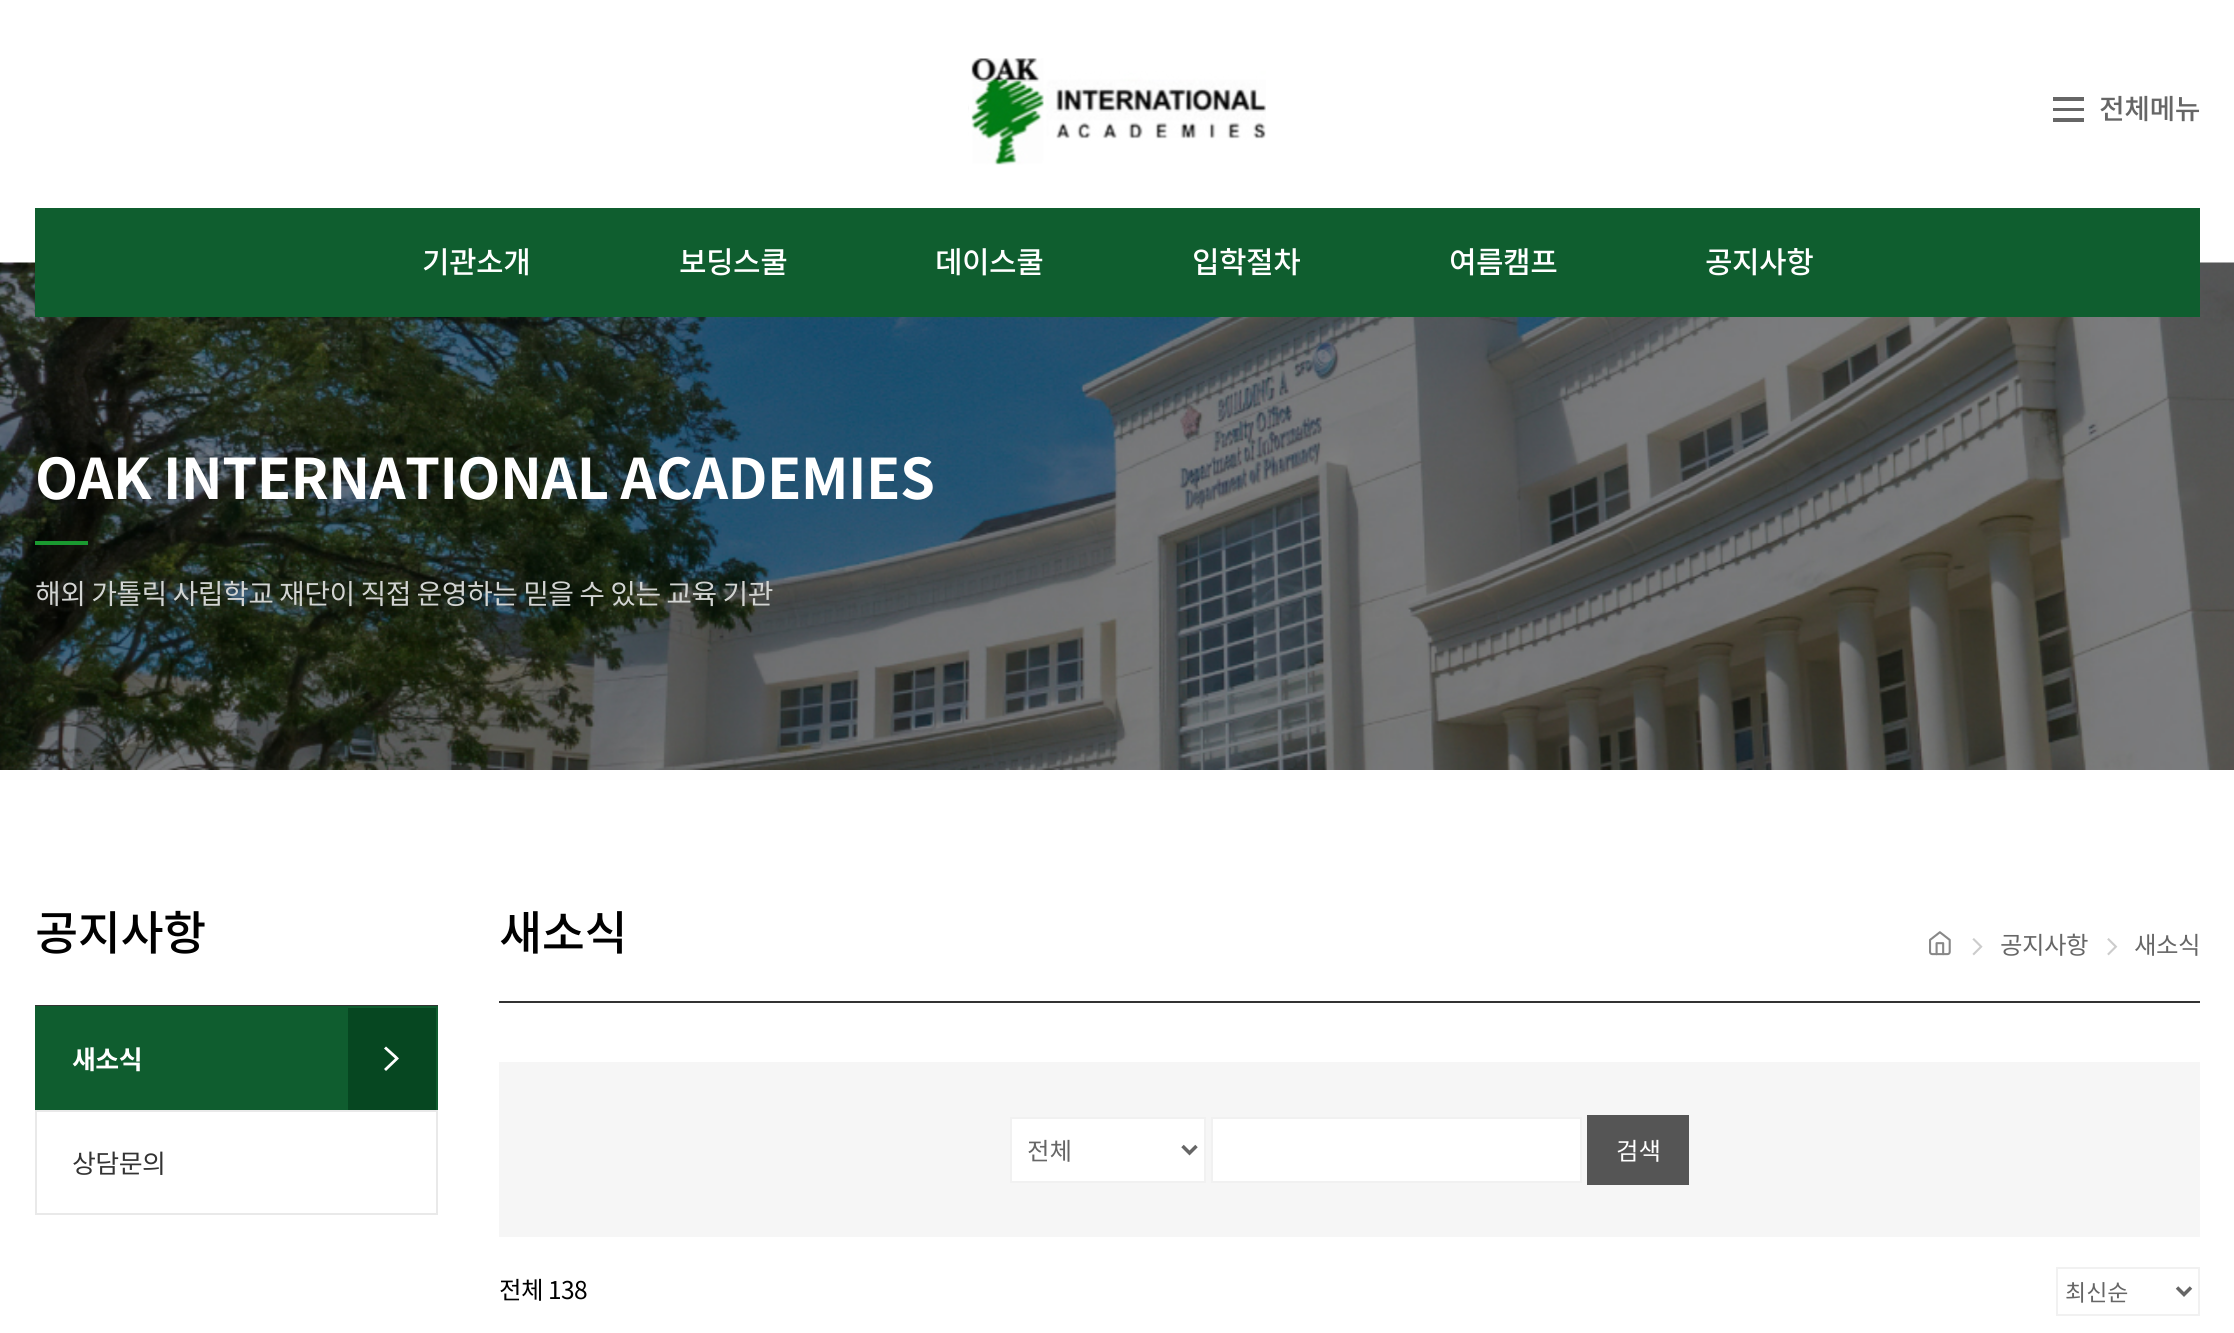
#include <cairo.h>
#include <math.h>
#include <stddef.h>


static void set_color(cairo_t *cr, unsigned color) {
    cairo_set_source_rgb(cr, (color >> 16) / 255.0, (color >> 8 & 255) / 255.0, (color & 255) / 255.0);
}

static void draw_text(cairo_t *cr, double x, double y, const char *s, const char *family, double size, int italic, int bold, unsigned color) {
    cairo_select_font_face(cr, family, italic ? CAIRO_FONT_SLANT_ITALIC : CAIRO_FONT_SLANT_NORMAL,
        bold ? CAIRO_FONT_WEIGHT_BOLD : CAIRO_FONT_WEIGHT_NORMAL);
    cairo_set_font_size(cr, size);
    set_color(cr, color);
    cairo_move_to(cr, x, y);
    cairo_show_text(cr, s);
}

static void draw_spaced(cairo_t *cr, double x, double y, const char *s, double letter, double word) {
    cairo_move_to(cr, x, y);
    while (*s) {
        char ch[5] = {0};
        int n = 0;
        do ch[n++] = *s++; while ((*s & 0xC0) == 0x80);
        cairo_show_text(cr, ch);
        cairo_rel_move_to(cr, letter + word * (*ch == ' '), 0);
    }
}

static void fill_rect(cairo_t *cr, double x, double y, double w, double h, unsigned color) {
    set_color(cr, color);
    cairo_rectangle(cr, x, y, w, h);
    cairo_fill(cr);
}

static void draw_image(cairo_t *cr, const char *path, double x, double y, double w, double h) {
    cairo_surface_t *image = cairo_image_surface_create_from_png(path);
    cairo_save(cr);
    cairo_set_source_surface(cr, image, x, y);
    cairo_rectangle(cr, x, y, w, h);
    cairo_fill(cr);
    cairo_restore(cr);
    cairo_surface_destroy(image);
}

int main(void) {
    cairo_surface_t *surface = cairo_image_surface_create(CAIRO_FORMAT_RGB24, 2234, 1333);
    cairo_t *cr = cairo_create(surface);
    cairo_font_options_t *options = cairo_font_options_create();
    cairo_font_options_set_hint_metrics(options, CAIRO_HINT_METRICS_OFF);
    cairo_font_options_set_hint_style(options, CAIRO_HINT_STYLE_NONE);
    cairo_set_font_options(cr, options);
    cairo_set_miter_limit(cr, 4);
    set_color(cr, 0xFFFFFF);
    cairo_paint(cr);
    draw_image(cr, "assets/img1.png", 968, 58, 298, 107);
    fill_rect(cr, 2053, 97, 31, 4, 0x666666);
    fill_rect(cr, 2053, 108, 31, 3, 0x666666);
    fill_rect(cr, 2053, 118, 31, 4, 0x666666);
    cairo_select_font_face(cr, "Noto Sans KR Medium", CAIRO_FONT_SLANT_NORMAL, CAIRO_FONT_WEIGHT_NORMAL);
    cairo_set_font_size(cr, 28);
    draw_spaced(cr, 2099, 119, "전체메뉴", -0.55, 0);
    draw_image(cr, "assets/img2.png", 0, 262, 2234, 508);
    fill_rect(cr, 35, 208, 2165, 109, 0x0F5E2F);
    cairo_set_font_size(cr, 30);
    set_color(cr, 0xFFFFFF);
    draw_spaced(cr, 422, 273, "기관소개", -0.55, 0);
    draw_spaced(cr, 679, 273, "보딩스쿨", -0.55, 0);
    draw_spaced(cr, 935, 273, "데이스쿨", -0.55, 0);
    draw_spaced(cr, 1192, 273, "입학절차", -0.55, 0);
    draw_spaced(cr, 1449, 273, "여름캠프", -0.55, 0);
    draw_spaced(cr, 1705, 273, "공지사항", -0.55, 0);
    cairo_select_font_face(cr, "Noto Sans KR", CAIRO_FONT_SLANT_NORMAL, CAIRO_FONT_WEIGHT_BOLD);
    cairo_set_font_size(cr, 56);
    draw_spaced(cr, 35, 499, "OAK INTERNATIONAL ACADEMIES", -0.55, 0);
    fill_rect(cr, 35, 541, 53, 4, 0x1A9930);
    cairo_select_font_face(cr, "Noto Sans KR", CAIRO_FONT_SLANT_NORMAL, CAIRO_FONT_WEIGHT_NORMAL);
    cairo_set_font_size(cr, 28);
    set_color(cr, 0xD2D4D2);
    draw_spaced(cr, 35, 604, "해외 가톨릭 사립학교 재단이 직접 운영하는 믿을 수 있는 교육 기관", -0.55, 0);
    fill_rect(cr, 35, 1005, 403, 1, 0x333333);
    cairo_select_font_face(cr, "Noto Sans KR Medium", CAIRO_FONT_SLANT_NORMAL, CAIRO_FONT_WEIGHT_NORMAL);
    cairo_set_font_size(cr, 47);
    set_color(cr, 0x000000);
    draw_spaced(cr, 35, 950, "공지사항", -0.55, 0);
    fill_rect(cr, 35, 1006, 403, 104, 0x0F5D2F);
    cairo_select_font_face(cr, "Noto Sans KR", CAIRO_FONT_SLANT_NORMAL, CAIRO_FONT_WEIGHT_BOLD);
    cairo_set_font_size(cr, 26);
    set_color(cr, 0xFFFFFF);
    draw_spaced(cr, 72, 1069, "새소식", -0.55, 0);
    fill_rect(cr, 348, 1008, 88, 102, 0x064721);
    set_color(cr, 0xFFFFFF);
    cairo_set_fill_rule(cr, CAIRO_FILL_RULE_EVEN_ODD);
    cairo_new_path(cr);
    cairo_move_to(cr, 396, 1055.5);
    cairo_line_to(cr, 386, 1046.5);
    cairo_line_to(cr, 384, 1048.5);
    cairo_line_to(cr, 395, 1058.5);
    cairo_line_to(cr, 384, 1069);
    cairo_line_to(cr, 386, 1071);
    cairo_line_to(cr, 399, 1058.5);
    cairo_close_path(cr);
    cairo_fill(cr);
    cairo_rectangle(cr, 36, 1111, 401, 103);
    set_color(cr, 0xE9E9E9);
    cairo_stroke(cr);
    cairo_select_font_face(cr, "Noto Sans KR", CAIRO_FONT_SLANT_NORMAL, CAIRO_FONT_WEIGHT_NORMAL);
    set_color(cr, 0x333333);
    draw_spaced(cr, 72, 1173, "상담문의", -0.55, 0);
    fill_rect(cr, 499, 1001, 1701, 2, 0x333333);
    cairo_select_font_face(cr, "Noto Sans KR Medium", CAIRO_FONT_SLANT_NORMAL, CAIRO_FONT_WEIGHT_NORMAL);
    cairo_set_font_size(cr, 47);
    set_color(cr, 0x000000);
    draw_spaced(cr, 499, 950, "새소식", -0.55, 0);
    draw_image(cr, "assets/img3.png", 1929, 931, 22, 25);
    draw_image(cr, "assets/img4.png", 1972, 938, 11, 18);
    cairo_select_font_face(cr, "Noto Sans KR", CAIRO_FONT_SLANT_NORMAL, CAIRO_FONT_WEIGHT_NORMAL);
    cairo_set_font_size(cr, 24.5);
    set_color(cr, 0x666666);
    draw_spaced(cr, 2000, 954, "공지사항", -0.55, 0);
    draw_image(cr, "assets/img5.png", 2107, 938, 11, 18);
    draw_spaced(cr, 2134, 954, "새소식", -0.55, 0);
    fill_rect(cr, 499, 1062, 1701, 175, 0xF6F6F6);
    set_color(cr, 0xFFFFFF);
    cairo_rectangle(cr, 1011, 1118, 194, 64);
    cairo_fill_preserve(cr);
    set_color(cr, 0xF1F1F1);
    cairo_stroke(cr);
    cairo_new_path(cr);
    cairo_move_to(cr, 1182.5, 1146);
    cairo_line_to(cr, 1189.5, 1153);
    cairo_line_to(cr, 1196.5, 1146);
    set_color(cr, 0x666666);
    cairo_set_line_width(cr, 3.5);
    cairo_stroke(cr);
    draw_text(cr, 1027, 1160, "전체", "Noto Sans KR", 24.5, 0, 0, 0x666666);
    set_color(cr, 0xFFFFFF);
    cairo_rectangle(cr, 1212, 1118, 369, 64);
    cairo_fill_preserve(cr);
    set_color(cr, 0xF1F1F1);
    cairo_set_line_width(cr, 2);
    cairo_stroke(cr);
    fill_rect(cr, 1587, 1115, 102, 70, 0x555555);
    draw_text(cr, 1616, 1160, "검색", "Noto Sans KR", 24.5, 0, 0, 0xFFFFFF);
    set_color(cr, 0x000000);
    draw_spaced(cr, 499, 1299, "전체 138", -0.55, 0);
    cairo_rectangle(cr, 2057, 1268, 142, 47);
    set_color(cr, 0xF1F1F1);
    cairo_stroke(cr);
    cairo_new_path(cr);
    cairo_move_to(cr, 2177, 1287.5);
    cairo_line_to(cr, 2184, 1294.5);
    cairo_line_to(cr, 2191, 1287.5);
    set_color(cr, 0x666666);
    cairo_set_line_width(cr, 3.5);
    cairo_stroke(cr);
    draw_text(cr, 2065, 1301, "최신순", "Noto Sans KR", 23, 0, 0, 0x666666);
    cairo_surface_write_to_png(surface, "output.png");
    cairo_font_options_destroy(options);
    cairo_destroy(cr);
    cairo_surface_destroy(surface);
    return 0;
}
